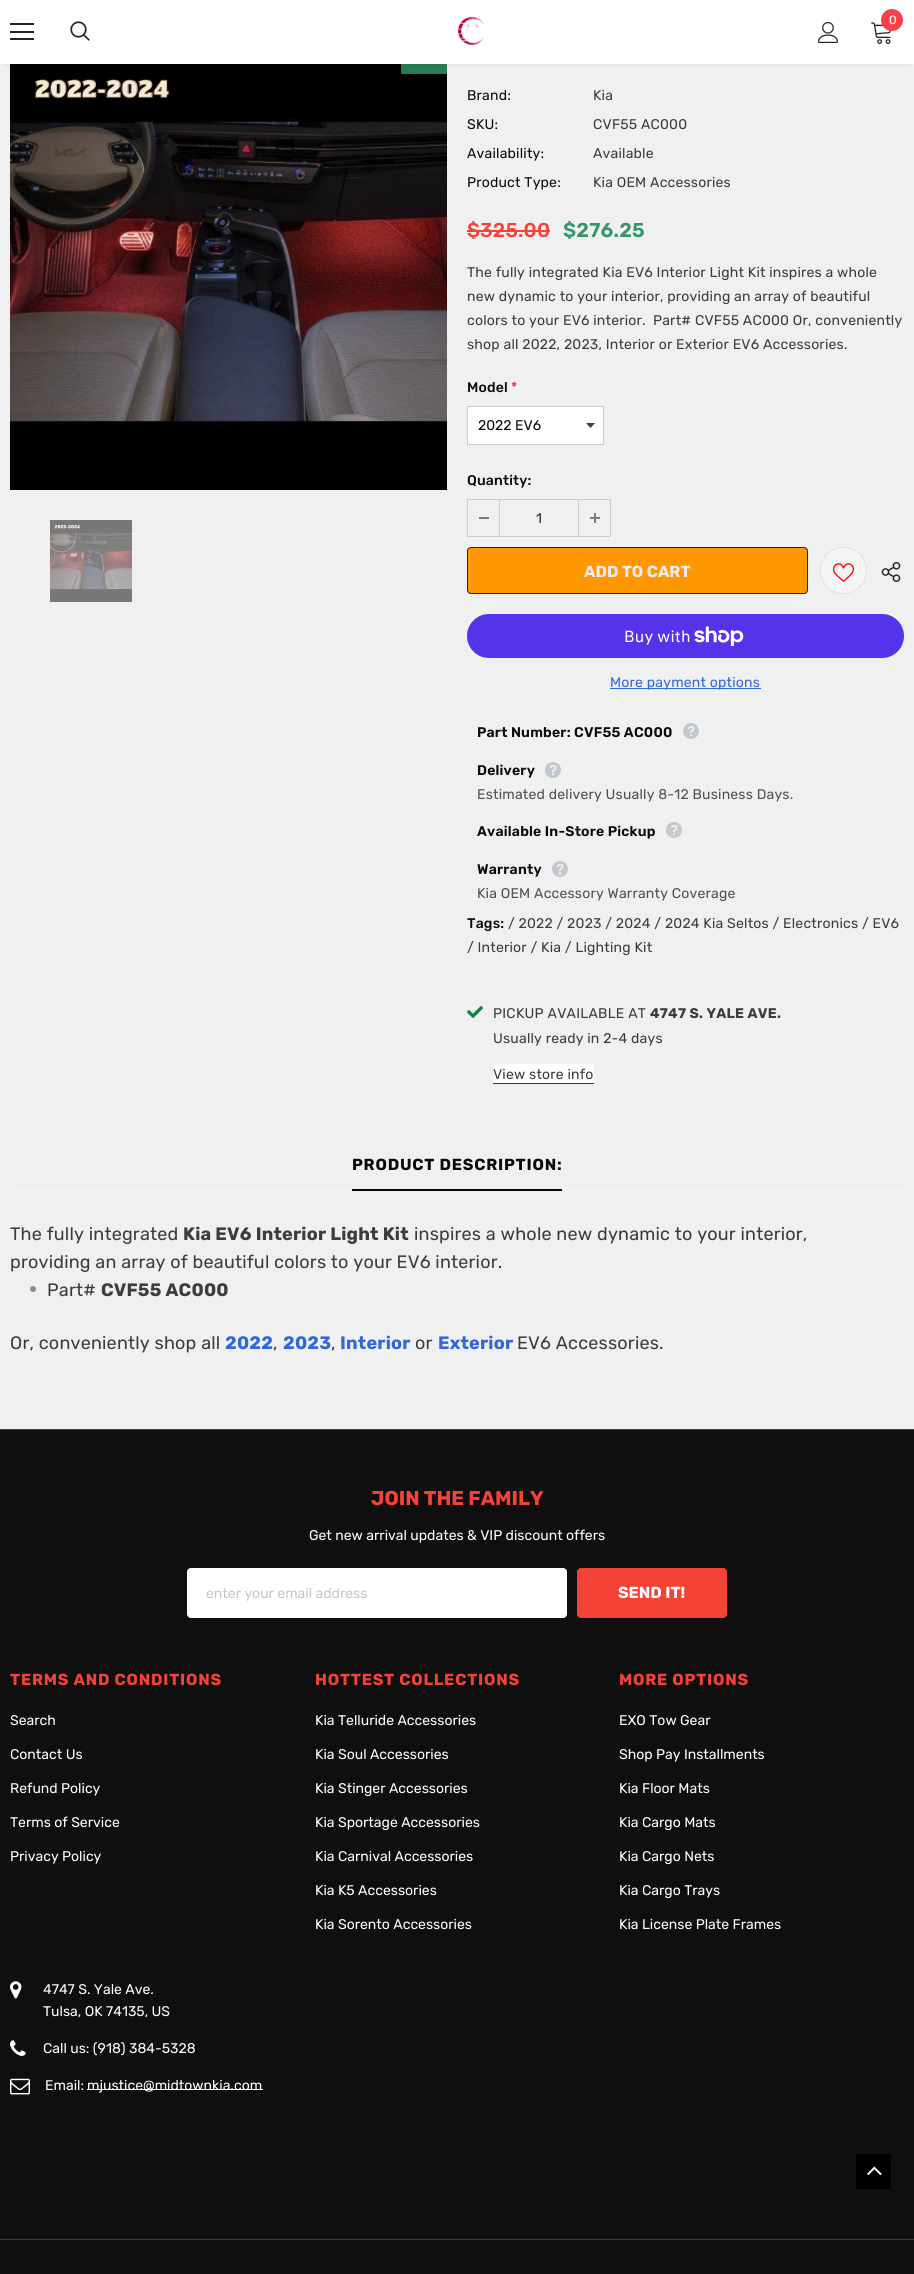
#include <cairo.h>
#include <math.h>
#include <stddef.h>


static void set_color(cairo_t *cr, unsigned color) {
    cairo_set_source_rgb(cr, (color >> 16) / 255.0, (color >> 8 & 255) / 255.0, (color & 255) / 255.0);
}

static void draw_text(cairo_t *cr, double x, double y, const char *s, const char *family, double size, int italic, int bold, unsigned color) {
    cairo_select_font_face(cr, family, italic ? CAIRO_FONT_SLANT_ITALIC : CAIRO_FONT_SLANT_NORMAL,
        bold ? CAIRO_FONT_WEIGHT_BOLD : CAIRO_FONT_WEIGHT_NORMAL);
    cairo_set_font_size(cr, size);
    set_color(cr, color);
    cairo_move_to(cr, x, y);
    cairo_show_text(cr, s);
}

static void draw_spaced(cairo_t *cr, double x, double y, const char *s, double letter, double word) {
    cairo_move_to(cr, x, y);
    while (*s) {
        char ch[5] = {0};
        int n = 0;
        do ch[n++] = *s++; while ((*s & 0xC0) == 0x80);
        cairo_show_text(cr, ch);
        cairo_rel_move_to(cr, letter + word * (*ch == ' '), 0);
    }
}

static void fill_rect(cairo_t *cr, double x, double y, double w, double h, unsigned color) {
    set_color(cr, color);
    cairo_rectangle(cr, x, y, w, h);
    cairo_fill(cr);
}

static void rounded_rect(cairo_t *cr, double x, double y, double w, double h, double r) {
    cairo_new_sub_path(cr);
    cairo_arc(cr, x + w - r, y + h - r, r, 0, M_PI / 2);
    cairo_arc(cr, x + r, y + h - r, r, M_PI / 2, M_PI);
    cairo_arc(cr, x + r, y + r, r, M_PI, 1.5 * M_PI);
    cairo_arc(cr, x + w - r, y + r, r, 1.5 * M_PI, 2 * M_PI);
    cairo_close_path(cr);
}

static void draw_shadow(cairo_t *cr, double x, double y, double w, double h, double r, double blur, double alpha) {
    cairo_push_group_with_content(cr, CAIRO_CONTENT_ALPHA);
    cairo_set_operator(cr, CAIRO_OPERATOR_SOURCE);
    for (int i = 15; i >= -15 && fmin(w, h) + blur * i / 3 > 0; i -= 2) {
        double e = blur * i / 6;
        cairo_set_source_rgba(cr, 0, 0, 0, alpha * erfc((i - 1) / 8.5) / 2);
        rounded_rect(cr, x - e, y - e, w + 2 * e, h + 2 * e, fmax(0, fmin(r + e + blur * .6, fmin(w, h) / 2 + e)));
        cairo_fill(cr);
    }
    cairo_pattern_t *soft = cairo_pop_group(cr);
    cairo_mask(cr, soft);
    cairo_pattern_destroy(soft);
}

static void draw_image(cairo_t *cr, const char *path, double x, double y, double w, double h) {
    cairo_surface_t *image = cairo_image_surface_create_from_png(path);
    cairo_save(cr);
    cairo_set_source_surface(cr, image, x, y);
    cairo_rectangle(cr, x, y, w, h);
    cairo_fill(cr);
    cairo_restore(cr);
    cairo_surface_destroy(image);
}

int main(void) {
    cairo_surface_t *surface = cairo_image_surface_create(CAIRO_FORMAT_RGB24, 914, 2274);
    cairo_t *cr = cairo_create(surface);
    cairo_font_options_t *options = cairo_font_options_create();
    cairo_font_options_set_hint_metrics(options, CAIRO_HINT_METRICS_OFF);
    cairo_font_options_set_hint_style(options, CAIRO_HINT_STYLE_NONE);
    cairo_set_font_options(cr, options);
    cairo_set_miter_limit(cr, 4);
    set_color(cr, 0xF0F0F0);
    cairo_paint(cr);
    draw_image(cr, "assets/img5.png", 10, 64, 437, 426);
    set_color(cr, 0x277C56);
    rounded_rect(cr, 401, 53, 46, 21, 1);
    cairo_fill(cr);
    set_color(cr, 0x000000);
    draw_shadow(cr, 3, 6, 908, 58, 0, 1.5, 0.12);
    fill_rect(cr, 0, 0, 914, 64, 0xFFFFFF);
    fill_rect(cr, 10, 23, 24, 2, 0x232323);
    fill_rect(cr, 10, 31, 24, 2, 0x232323);
    fill_rect(cr, 10, 38, 24, 2, 0x232323);
    draw_image(cr, "assets/img1.png", 70, 21, 20, 20);
    draw_image(cr, "assets/img2.png", 457, 16, 27, 30);
    draw_image(cr, "assets/img3.png", 871, 22, 20, 22);
    set_color(cr, 0xF84248);
    cairo_arc(cr, 892, 20, 11, 0, 2 * M_PI);
    cairo_fill(cr);
    draw_text(cr, 889, 24, "0", "Rubik", 12, 0, 0, 0xFFFFFF);
    draw_image(cr, "assets/img4.png", 818, 22, 20, 21);
    draw_image(cr, "assets/img6.png", 50, 520, 82, 82);
    cairo_set_font_size(cr, 14);
    set_color(cr, 0x0B0B0B);
    draw_spaced(cr, 467, 100, "Brand:", 0.2, 0);
    set_color(cr, 0x3C3C3C);
    draw_spaced(cr, 593, 100, "Kia", 0.2, 0);
    set_color(cr, 0x0B0B0B);
    draw_spaced(cr, 467, 129, "SKU:", 0.2, 0);
    set_color(cr, 0x3C3C3C);
    draw_spaced(cr, 593, 129, "CVF55 AC000", 0.2, 0);
    set_color(cr, 0x0B0B0B);
    draw_spaced(cr, 467, 158, "Availability:", 0.2, 0);
    set_color(cr, 0x3C3C3C);
    draw_spaced(cr, 593, 158, "Available", 0.2, 0);
    set_color(cr, 0x0B0B0B);
    draw_spaced(cr, 467, 187, "Product Type:", 0.2, 0);
    set_color(cr, 0x3C3C3C);
    draw_spaced(cr, 593, 187, "Kia OEM Accessories", 0.2, 0);
    cairo_select_font_face(cr, "Rubik Medium", CAIRO_FONT_SLANT_NORMAL, CAIRO_FONT_WEIGHT_NORMAL);
    cairo_set_font_size(cr, 20);
    set_color(cr, 0xF44336);
    draw_spaced(cr, 467, 237, "$325.00", 0.2, 0);
    fill_rect(cr, 467, 230, 83, 2, 0xF44336);
    cairo_select_font_face(cr, "Rubik SemiBold", CAIRO_FONT_SLANT_NORMAL, CAIRO_FONT_WEIGHT_NORMAL);
    set_color(cr, 0x34966A);
    draw_spaced(cr, 563, 237, "$276.25", 0.2, 0);
    cairo_select_font_face(cr, "Rubik", CAIRO_FONT_SLANT_NORMAL, CAIRO_FONT_WEIGHT_NORMAL);
    cairo_set_font_size(cr, 14);
    set_color(cr, 0x3C3C3C);
    draw_spaced(cr, 467, 277, "The fully integrated Kia EV6 Interior Light Kit inspires a whole", 0.2, 0);
    draw_spaced(cr, 467, 301, "new dynamic to your interior, providing an array of beautiful", 0.2, 0);
    draw_spaced(cr, 467, 325, "colors to your EV6 interior.", 0.2, 0);
    draw_spaced(cr, 653, 325, "Part# CVF55 AC000 Or, conveniently", 0.2, 0);
    draw_spaced(cr, 467, 349, "shop all 2022, 2023, Interior or Exterior EV6 Accessories.", 0.2, 0);
    cairo_select_font_face(cr, "Rubik Medium", CAIRO_FONT_SLANT_NORMAL, CAIRO_FONT_WEIGHT_NORMAL);
    set_color(cr, 0x0B0B0B);
    draw_spaced(cr, 467, 392, "Model", 0.2, 0);
    set_color(cr, 0xF23446);
    draw_spaced(cr, 511, 392, "*", 0.2, 0);
    fill_rect(cr, 468, 407, 135, 37, 0xFFFFFF);
    draw_image(cr, "assets/img7.png", 586, 423, 9, 5);
    cairo_rectangle(cr, 467.5, 406.5, 136, 38);
    set_color(cr, 0xCBCBCB);
    cairo_set_line_width(cr, 1);
    cairo_stroke(cr);
    draw_text(cr, 478, 430, "2022 EV6", "Rubik", 14, 0, 0, 0x0B0B0B);
    cairo_select_font_face(cr, "Rubik Medium", CAIRO_FONT_SLANT_NORMAL, CAIRO_FONT_WEIGHT_NORMAL);
    draw_spaced(cr, 467, 485, "Quantity:", 0.2, 0);
    cairo_rectangle(cr, 467.5, 499.5, 143, 37);
    set_color(cr, 0xCBCBCB);
    cairo_stroke(cr);
    fill_rect(cr, 499, 500, 1, 36, 0xCBCBCB);
    fill_rect(cr, 479, 517, 10, 2, 0x7B7B7B);
    draw_text(cr, 536, 523, "1", "Rubik", 14, 0, 0, 0x2D2D2D);
    fill_rect(cr, 578, 500, 1, 36, 0xCBCBCB);
    fill_rect(cr, 590, 517, 10, 2, 0x7B7B7B);
    fill_rect(cr, 594, 513, 2, 10, 0x7B7B7B);
    set_color(cr, 0xFF9800);
    rounded_rect(cr, 467.5, 547.5, 340, 46, 3.5);
    cairo_fill_preserve(cr);
    set_color(cr, 0x232323);
    cairo_stroke(cr);
    draw_text(cr, 584, 577, "ADD TO CART", "Rubik", 16, 0, 1, 0xEDEBF7);
    set_color(cr, 0xF5F5F5);
    cairo_new_path(cr);
    cairo_arc(cr, 843.5, 570.5, 23, 0, 2 * M_PI);
    cairo_fill_preserve(cr);
    set_color(cr, 0xE1E1E1);
    cairo_stroke(cr);
    draw_image(cr, "assets/img8.png", 833, 563, 21, 19);
    draw_image(cr, "assets/img9.png", 881, 562, 20, 20);
    set_color(cr, 0x5433EB);
    rounded_rect(cr, 467, 614, 437, 44, 22);
    cairo_fill(cr);
    cairo_select_font_face(cr, "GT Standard", CAIRO_FONT_SLANT_NORMAL, CAIRO_FONT_WEIGHT_NORMAL);
    set_color(cr, 0xFFFFFF);
    draw_spaced(cr, 624, 642, "Buy with", 0.2, 0);
    draw_image(cr, "assets/img10.png", 694, 626, 50, 20);
    fill_rect(cr, 610, 688, 151, 1, 0x3168D9);
    cairo_select_font_face(cr, "Rubik", CAIRO_FONT_SLANT_NORMAL, CAIRO_FONT_WEIGHT_NORMAL);
    cairo_set_font_size(cr, 14);
    draw_spaced(cr, 610, 687, "More payment options", 0.2, 0);
    cairo_select_font_face(cr, "Rubik SemiBold", CAIRO_FONT_SLANT_NORMAL, CAIRO_FONT_WEIGHT_NORMAL);
    set_color(cr, 0x0B0B0B);
    draw_spaced(cr, 477, 737, "Part Number: CVF55 AC000", 0.2, 0);
    draw_image(cr, "assets/img11.png", 683, 723, 16, 16);
    draw_spaced(cr, 477, 775, "Delivery", 0.2, 0);
    draw_image(cr, "assets/img11.png", 545, 762, 16, 16);
    cairo_select_font_face(cr, "Rubik", CAIRO_FONT_SLANT_NORMAL, CAIRO_FONT_WEIGHT_NORMAL);
    set_color(cr, 0x505050);
    draw_spaced(cr, 477, 799, "Estimated delivery Usually 8-12 Business Days.", 0.2, 0);
    cairo_select_font_face(cr, "Rubik SemiBold", CAIRO_FONT_SLANT_NORMAL, CAIRO_FONT_WEIGHT_NORMAL);
    set_color(cr, 0x0B0B0B);
    draw_spaced(cr, 477, 836, "Available In-Store Pickup", 0.2, 0);
    draw_image(cr, "assets/img11.png", 666, 822, 16, 16);
    draw_spaced(cr, 477, 874, "Warranty", 0.2, 0);
    draw_image(cr, "assets/img11.png", 552, 861, 16, 16);
    cairo_select_font_face(cr, "Rubik", CAIRO_FONT_SLANT_NORMAL, CAIRO_FONT_WEIGHT_NORMAL);
    set_color(cr, 0x505050);
    draw_spaced(cr, 477, 898, "Kia OEM Accessory Warranty Coverage", 0.2, 0);
    cairo_select_font_face(cr, "Rubik Medium", CAIRO_FONT_SLANT_NORMAL, CAIRO_FONT_WEIGHT_NORMAL);
    set_color(cr, 0x0B0B0B);
    draw_spaced(cr, 467, 928, "Tags:", 0.2, 0);
    cairo_select_font_face(cr, "Rubik", CAIRO_FONT_SLANT_NORMAL, CAIRO_FONT_WEIGHT_NORMAL);
    set_color(cr, 0x3C3C3C);
    draw_spaced(cr, 508, 928, "/ 2022 / 2023 / 2024 / 2024 Kia Seltos / Electronics / EV6", 0.2, 0);
    draw_spaced(cr, 467, 952, "/ Interior / Kia / Lighting Kit", 0.2, 0);
    fill_rect(cr, 467, 980, 437, 1, 0xF6F6F6);
    draw_image(cr, "assets/img12.png", 467, 1006, 16, 12);
    set_color(cr, 0x3C3C3C);
    draw_spaced(cr, 493, 1018, "PICKUP AVAILABLE AT", 0.25, 0);
    cairo_select_font_face(cr, "Rubik", CAIRO_FONT_SLANT_NORMAL, CAIRO_FONT_WEIGHT_BOLD);
    draw_spaced(cr, 650, 1018, "4747 S. YALE AVE.", 0.25, 0);
    cairo_select_font_face(cr, "Rubik", CAIRO_FONT_SLANT_NORMAL, CAIRO_FONT_WEIGHT_NORMAL);
    draw_spaced(cr, 493, 1043, "Usually ready in 2-4 days", 0.2, 0);
    fill_rect(cr, 493, 1064, 101, 19, 0xFFFFFF);
    fill_rect(cr, 493, 1083, 101, 1, 0x3C3C3C);
    draw_spaced(cr, 493, 1079, "View store info", 0.2, 0);
    fill_rect(cr, 10, 1190, 894, 1, 0xF6F6F6);
    cairo_select_font_face(cr, "Rubik", CAIRO_FONT_SLANT_NORMAL, CAIRO_FONT_WEIGHT_BOLD);
    cairo_set_font_size(cr, 16);
    set_color(cr, 0x0B0B0B);
    draw_spaced(cr, 352, 1170, "PRODUCT DESCRIPTION:", 0.8, 0);
    fill_rect(cr, 352, 1189, 210, 2, 0x0B0B0B);
    cairo_select_font_face(cr, "Rubik", CAIRO_FONT_SLANT_NORMAL, CAIRO_FONT_WEIGHT_NORMAL);
    cairo_set_font_size(cr, 18);
    set_color(cr, 0x3C3C3C);
    draw_spaced(cr, 10, 1240, "The fully integrated", 0.2, 0);
    cairo_select_font_face(cr, "Rubik", CAIRO_FONT_SLANT_NORMAL, CAIRO_FONT_WEIGHT_BOLD);
    draw_spaced(cr, 183, 1240, "Kia EV6 Interior Light Kit", 0.2, 0);
    cairo_select_font_face(cr, "Rubik", CAIRO_FONT_SLANT_NORMAL, CAIRO_FONT_WEIGHT_NORMAL);
    draw_spaced(cr, 414, 1240, "inspires a whole new dynamic to your interior,", 0.2, 0);
    draw_spaced(cr, 10, 1268, "providing an array of beautiful colors to your EV6 interior.", 0.2, 0);
    set_color(cr, 0x8C8C8C);
    cairo_new_path(cr);
    cairo_arc(cr, 33, 1289, 3, 0, 2 * M_PI);
    cairo_fill(cr);
    set_color(cr, 0x3C3C3C);
    draw_spaced(cr, 47, 1296, "Part#", 0.2, 0);
    cairo_select_font_face(cr, "Rubik", CAIRO_FONT_SLANT_NORMAL, CAIRO_FONT_WEIGHT_BOLD);
    draw_spaced(cr, 101, 1296, "CVF55 AC000", 0.2, 0);
    cairo_select_font_face(cr, "Rubik", CAIRO_FONT_SLANT_NORMAL, CAIRO_FONT_WEIGHT_NORMAL);
    draw_spaced(cr, 10, 1349, "Or, conveniently shop all", 0.2, 0);
    cairo_select_font_face(cr, "Rubik", CAIRO_FONT_SLANT_NORMAL, CAIRO_FONT_WEIGHT_BOLD);
    set_color(cr, 0x3168D9);
    draw_spaced(cr, 225, 1349, "2022", 0.2, 0);
    cairo_select_font_face(cr, "Rubik", CAIRO_FONT_SLANT_NORMAL, CAIRO_FONT_WEIGHT_NORMAL);
    set_color(cr, 0x3C3C3C);
    draw_spaced(cr, 273, 1349, ",", 0.2, 0);
    cairo_select_font_face(cr, "Rubik", CAIRO_FONT_SLANT_NORMAL, CAIRO_FONT_WEIGHT_BOLD);
    set_color(cr, 0x3168D9);
    draw_spaced(cr, 283, 1349, "2023", 0.2, 0);
    cairo_select_font_face(cr, "Rubik", CAIRO_FONT_SLANT_NORMAL, CAIRO_FONT_WEIGHT_NORMAL);
    set_color(cr, 0x3C3C3C);
    draw_spaced(cr, 331, 1349, ",", 0.2, 0);
    cairo_select_font_face(cr, "Rubik", CAIRO_FONT_SLANT_NORMAL, CAIRO_FONT_WEIGHT_BOLD);
    set_color(cr, 0x3168D9);
    draw_spaced(cr, 340, 1349, "Interior", 0.2, 0);
    cairo_select_font_face(cr, "Rubik", CAIRO_FONT_SLANT_NORMAL, CAIRO_FONT_WEIGHT_NORMAL);
    set_color(cr, 0x3C3C3C);
    draw_spaced(cr, 415, 1349, "or", 0.2, 0);
    cairo_select_font_face(cr, "Rubik", CAIRO_FONT_SLANT_NORMAL, CAIRO_FONT_WEIGHT_BOLD);
    set_color(cr, 0x3168D9);
    draw_spaced(cr, 438, 1349, "Exterior", 0.2, 0);
    cairo_select_font_face(cr, "Rubik", CAIRO_FONT_SLANT_NORMAL, CAIRO_FONT_WEIGHT_NORMAL);
    set_color(cr, 0x3C3C3C);
    draw_spaced(cr, 517, 1349, "EV6 Accessories.", 0.2, 0);
    fill_rect(cr, 0, 1430, 914, 844, 0x0F0F0F);
    fill_rect(cr, 0, 1429, 914, 1, 0x3A3E45);
    draw_text(cr, 371, 1505, "JOIN THE FAMILY", "Rubik", 20, 0, 1, 0xF44336);
    draw_text(cr, 309, 1540, "Get new arrival updates & VIP discount offers", "Rubik", 14, 0, 0, 0xFFFFFF);
    rounded_rect(cr, 187.5, 1568.5, 379, 49, 3.5);
    cairo_fill_preserve(cr);
    cairo_stroke(cr);
    draw_text(cr, 206, 1598, "enter your email address", "Rubik", 14, 0, 0, 0xCCC4C4);
    set_color(cr, 0xF44336);
    rounded_rect(cr, 577.5, 1568.5, 149, 49, 3.5);
    cairo_fill_preserve(cr);
    cairo_stroke(cr);
    draw_text(cr, 618, 1598, "SEND IT!", "Rubik", 16, 0, 1, 0xFFFFFF);
    set_color(cr, 0xF44336);
    draw_spaced(cr, 10, 1685, "TERMS AND CONDITIONS", 0.8, 0);
    draw_text(cr, 10, 1725, "Search", "Rubik", 14, 0, 0, 0xFFFFFF);
    draw_text(cr, 10, 1759, "Contact Us", "Rubik", 14, 0, 0, 0xFFFFFF);
    draw_text(cr, 10, 1793, "Refund Policy", "Rubik", 14, 0, 0, 0xFFFFFF);
    draw_text(cr, 10, 1827, "Terms of Service", "Rubik", 14, 0, 0, 0xFFFFFF);
    draw_text(cr, 10, 1861, "Privacy Policy", "Rubik", 14, 0, 0, 0xFFFFFF);
    cairo_select_font_face(cr, "Rubik", CAIRO_FONT_SLANT_NORMAL, CAIRO_FONT_WEIGHT_BOLD);
    cairo_set_font_size(cr, 16);
    set_color(cr, 0xF44336);
    draw_spaced(cr, 315, 1685, "HOTTEST COLLECTIONS", 0.8, 0);
    draw_text(cr, 315, 1725, "Kia Telluride Accessories", "Rubik", 14, 0, 0, 0xFFFFFF);
    draw_text(cr, 315, 1759, "Kia Soul Accessories", "Rubik", 14, 0, 0, 0xFFFFFF);
    draw_text(cr, 315, 1793, "Kia Stinger Accessories", "Rubik", 14, 0, 0, 0xFFFFFF);
    draw_text(cr, 315, 1827, "Kia Sportage Accessories", "Rubik", 14, 0, 0, 0xFFFFFF);
    draw_text(cr, 315, 1861, "Kia Carnival Accessories", "Rubik", 14, 0, 0, 0xFFFFFF);
    draw_text(cr, 315, 1895, "Kia K5 Accessories", "Rubik", 14, 0, 0, 0xFFFFFF);
    draw_text(cr, 315, 1929, "Kia Sorento Accessories", "Rubik", 14, 0, 0, 0xFFFFFF);
    cairo_select_font_face(cr, "Rubik", CAIRO_FONT_SLANT_NORMAL, CAIRO_FONT_WEIGHT_BOLD);
    cairo_set_font_size(cr, 16);
    set_color(cr, 0xF44336);
    draw_spaced(cr, 619, 1685, "MORE OPTIONS", 0.8, 0);
    draw_text(cr, 619, 1725, "EXO Tow Gear", "Rubik", 14, 0, 0, 0xFFFFFF);
    draw_text(cr, 619, 1759, "Shop Pay Installments", "Rubik", 14, 0, 0, 0xFFFFFF);
    draw_text(cr, 619, 1793, "Kia Floor Mats", "Rubik", 14, 0, 0, 0xFFFFFF);
    draw_text(cr, 619, 1827, "Kia Cargo Mats", "Rubik", 14, 0, 0, 0xFFFFFF);
    draw_text(cr, 619, 1861, "Kia Cargo Nets", "Rubik", 14, 0, 0, 0xFFFFFF);
    draw_text(cr, 619, 1895, "Kia Cargo Trays", "Rubik", 14, 0, 0, 0xFFFFFF);
    draw_text(cr, 619, 1929, "Kia License Plate Frames", "Rubik", 14, 0, 0, 0xFFFFFF);
    draw_image(cr, "assets/img13.png", 10, 1981, 12, 18);
    draw_text(cr, 43, 1994, "4747 S. Yale Ave.", "Rubik", 14, 0, 0, 0xFFFFFF);
    draw_text(cr, 43, 2016, "Tulsa, OK 74135, US", "Rubik", 14, 0, 0, 0xFFFFFF);
    draw_image(cr, "assets/img14.png", 10, 2040, 16, 16);
    draw_text(cr, 43, 2053, "Call us: (918) 384-5328", "Rubik", 14, 0, 0, 0xFFFFFF);
    draw_image(cr, "assets/img15.png", 10, 2078, 20, 17);
    draw_text(cr, 45, 2090, "Email:", "Rubik", 14, 0, 0, 0xFFFFFF);
    fill_rect(cr, 87, 2089, 176, 1, 0xFFFFFF);
    draw_text(cr, 87, 2090, "mjustice@midtownkia.com", "Rubik", 14, 0, 0, 0xFFFFFF);
    fill_rect(cr, 0, 2239, 914, 1, 0x3A3E45);
    fill_rect(cr, 856, 2154, 35, 35, 0x000000);
    draw_image(cr, "assets/img16.png", 867, 2166, 15, 9);
    cairo_surface_write_to_png(surface, "output.png");
    cairo_font_options_destroy(options);
    cairo_destroy(cr);
    cairo_surface_destroy(surface);
    return 0;
}
